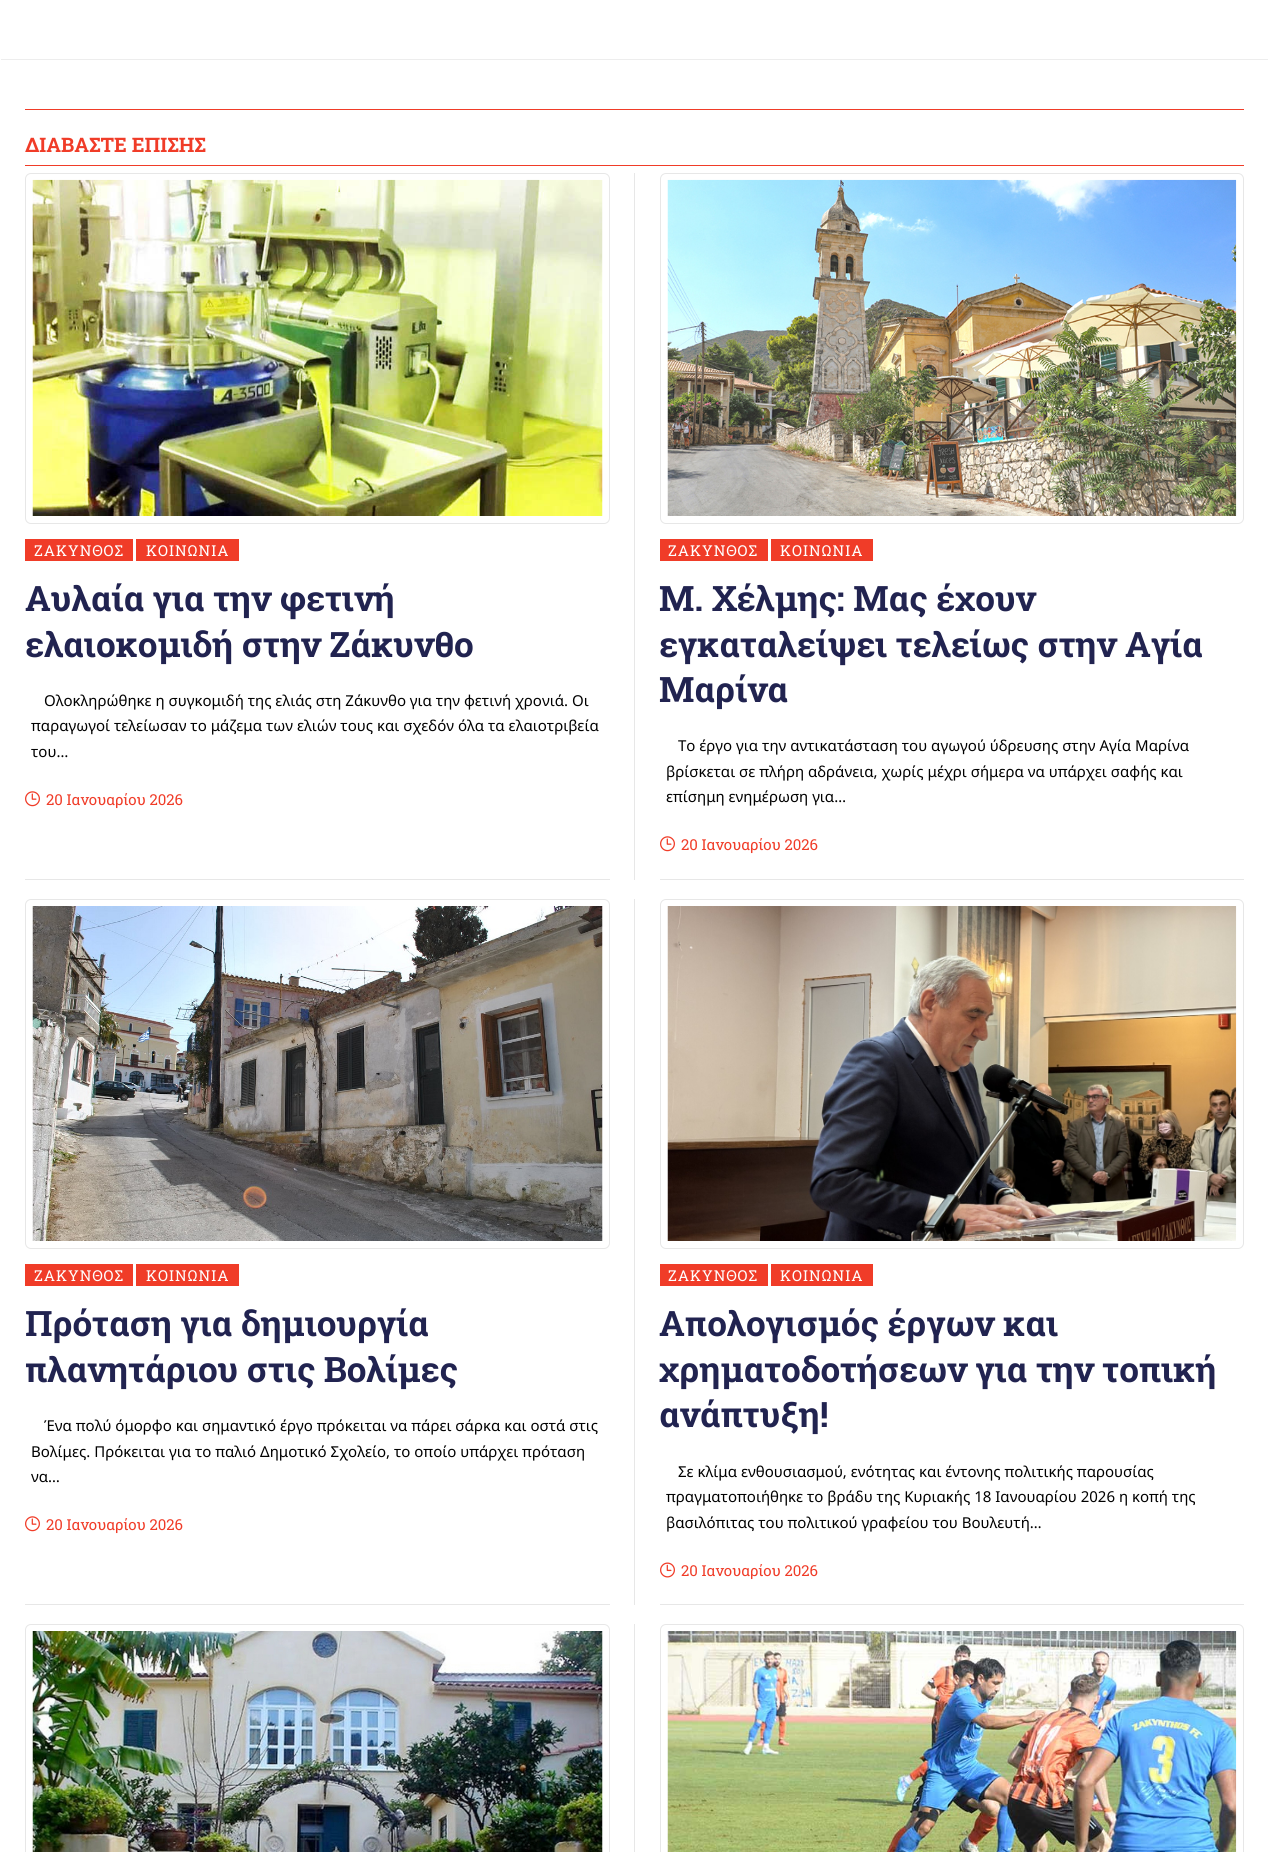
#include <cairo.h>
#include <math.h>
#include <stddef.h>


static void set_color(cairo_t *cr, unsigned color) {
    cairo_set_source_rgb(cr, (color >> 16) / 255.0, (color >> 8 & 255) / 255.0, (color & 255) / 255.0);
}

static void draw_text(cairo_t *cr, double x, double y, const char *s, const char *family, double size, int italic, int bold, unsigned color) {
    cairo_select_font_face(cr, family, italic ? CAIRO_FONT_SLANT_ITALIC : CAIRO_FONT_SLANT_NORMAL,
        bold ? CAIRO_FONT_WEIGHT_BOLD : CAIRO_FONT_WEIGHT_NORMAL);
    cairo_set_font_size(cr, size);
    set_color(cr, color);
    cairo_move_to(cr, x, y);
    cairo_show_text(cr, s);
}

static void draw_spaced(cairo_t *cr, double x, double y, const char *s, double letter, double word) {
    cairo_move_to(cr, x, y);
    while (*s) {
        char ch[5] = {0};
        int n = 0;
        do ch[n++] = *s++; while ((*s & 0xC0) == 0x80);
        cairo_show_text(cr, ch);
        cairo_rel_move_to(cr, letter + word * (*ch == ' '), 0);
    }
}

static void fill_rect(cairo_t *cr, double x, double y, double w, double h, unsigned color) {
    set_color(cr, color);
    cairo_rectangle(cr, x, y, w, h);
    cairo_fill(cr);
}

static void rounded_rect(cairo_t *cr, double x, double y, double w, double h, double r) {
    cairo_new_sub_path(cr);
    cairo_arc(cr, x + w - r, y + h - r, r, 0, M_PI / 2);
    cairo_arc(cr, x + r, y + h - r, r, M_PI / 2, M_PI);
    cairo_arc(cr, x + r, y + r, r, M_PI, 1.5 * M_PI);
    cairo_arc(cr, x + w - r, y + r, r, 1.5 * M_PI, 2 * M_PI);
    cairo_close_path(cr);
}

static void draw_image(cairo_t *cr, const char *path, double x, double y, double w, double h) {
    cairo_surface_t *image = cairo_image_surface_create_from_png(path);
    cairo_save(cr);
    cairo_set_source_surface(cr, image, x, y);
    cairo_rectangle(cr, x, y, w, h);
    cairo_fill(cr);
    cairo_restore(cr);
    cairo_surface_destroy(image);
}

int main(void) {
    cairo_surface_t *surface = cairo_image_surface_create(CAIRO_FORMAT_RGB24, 1268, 1852);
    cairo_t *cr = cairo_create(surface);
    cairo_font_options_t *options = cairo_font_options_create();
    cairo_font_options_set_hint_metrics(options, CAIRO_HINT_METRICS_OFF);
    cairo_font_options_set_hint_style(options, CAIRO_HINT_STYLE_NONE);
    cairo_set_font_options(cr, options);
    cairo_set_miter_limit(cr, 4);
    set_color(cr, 0xFFFFFF);
    cairo_paint(cr);
    fill_rect(cr, 1, 59, 1267, 1, 0xEDEDED);
    fill_rect(cr, 25, 109, 1219, 1, 0xF03C28);
    fill_rect(cr, 25, 165, 1219, 1, 0xF03C28);
    draw_text(cr, 25, 152, "ΔΙΑΒΑΣΤΕ ΕΠΙΣΗΣ", "Roboto Slab", 20, 0, 1, 0xF03C28);
    rounded_rect(cr, 25.5, 173.5, 584, 350, 5.5);
    set_color(cr, 0xE7E7E7);
    cairo_set_line_width(cr, 1);
    cairo_stroke(cr);
    draw_image(cr, "assets/img1.png", 32, 179, 571, 337);
    fill_rect(cr, 634, 173, 1, 707, 0xE7E7E7);
    fill_rect(cr, 25, 539, 108, 22, 0xF03C28);
    cairo_select_font_face(cr, "Roboto Slab", CAIRO_FONT_SLANT_NORMAL, CAIRO_FONT_WEIGHT_NORMAL);
    cairo_set_font_size(cr, 15);
    set_color(cr, 0xFFFFFF);
    draw_spaced(cr, 34, 556, "ΖΑΚΥΝΘΟΣ", 1, 0);
    fill_rect(cr, 136, 539, 103, 22, 0xF03C28);
    set_color(cr, 0xFFFFFF);
    draw_spaced(cr, 146, 556, "ΚΟΙΝΩΝΙΑ", 1, 0);
    draw_text(cr, 25, 611, "Αυλαία για την φετινή", "Roboto Slab", 35, 0, 1, 0x212350);
    draw_text(cr, 25, 657, "ελαιοκομιδή στην Ζάκυνθο", "Roboto Slab", 35, 0, 1, 0x212350);
    draw_text(cr, 44, 706, "Ολοκληρώθηκε η συγκομιδή της ελιάς στη Ζάκυνθο για την φετινή χρονιά. Οι", "Noto Sans", 15, 0, 0, 0x000000);
    draw_text(cr, 31, 731, "παραγωγοί τελείωσαν το μάζεμα των ελιών τους και σχεδόν όλα τα ελαιοτριβεία", "Noto Sans", 15, 0, 0, 0x000000);
    draw_text(cr, 31, 757, "του…", "Noto Sans", 15, 0, 0, 0x000000);
    draw_image(cr, "assets/img2.png", 25, 791, 15, 16);
    draw_text(cr, 46, 805, "20 Ιανουαρίου 2026", "Roboto Slab", 15, 0, 0, 0xF03C28);
    fill_rect(cr, 25, 879, 585, 1, 0xE7E7E7);
    rounded_rect(cr, 660.5, 173.5, 583, 350, 5.5);
    cairo_stroke(cr);
    draw_image(cr, "assets/img3.png", 667, 179, 570, 337);
    fill_rect(cr, 660, 539, 108, 22, 0xF03C28);
    set_color(cr, 0xFFFFFF);
    draw_spaced(cr, 668, 556, "ΖΑΚΥΝΘΟΣ", 1, 0);
    fill_rect(cr, 771, 539, 102, 22, 0xF03C28);
    set_color(cr, 0xFFFFFF);
    draw_spaced(cr, 780, 556, "ΚΟΙΝΩΝΙΑ", 1, 0);
    draw_text(cr, 659, 611, "Μ. Χέλμης: Μας έχουν", "Roboto Slab", 35, 0, 1, 0x212350);
    draw_text(cr, 659, 657, "εγκαταλείψει τελείως στην Αγία", "Roboto Slab", 35, 0, 1, 0x212350);
    draw_text(cr, 659, 702, "Μαρίνα", "Roboto Slab", 35, 0, 1, 0x212350);
    draw_text(cr, 678, 751, "Το έργο για την αντικατάσταση του αγωγού ύδρευσης στην Αγία Μαρίνα", "Noto Sans", 15, 0, 0, 0x000000);
    draw_text(cr, 666, 777, "βρίσκεται σε πλήρη αδράνεια, χωρίς μέχρι σήμερα να υπάρχει σαφής και", "Noto Sans", 15, 0, 0, 0x000000);
    draw_text(cr, 666, 802, "επίσημη ενημέρωση για…", "Noto Sans", 15, 0, 0, 0x000000);
    draw_image(cr, "assets/img2.png", 660, 836, 15, 16);
    draw_text(cr, 681, 850, "20 Ιανουαρίου 2026", "Roboto Slab", 15, 0, 0, 0xF03C28);
    fill_rect(cr, 660, 879, 584, 1, 0xE7E7E7);
    rounded_rect(cr, 25.5, 899.5, 584, 349, 5.5);
    cairo_stroke(cr);
    draw_image(cr, "assets/img4.png", 32, 906, 571, 335);
    fill_rect(cr, 634, 899, 1, 706, 0xE7E7E7);
    fill_rect(cr, 25, 1264, 108, 22, 0xF03C28);
    set_color(cr, 0xFFFFFF);
    draw_spaced(cr, 34, 1281, "ΖΑΚΥΝΘΟΣ", 1, 0);
    fill_rect(cr, 136, 1264, 103, 22, 0xF03C28);
    set_color(cr, 0xFFFFFF);
    draw_spaced(cr, 146, 1281, "ΚΟΙΝΩΝΙΑ", 1, 0);
    draw_text(cr, 25, 1336, "Πρόταση για δημιουργία", "Roboto Slab", 35, 0, 1, 0x212350);
    draw_text(cr, 25, 1382, "πλανητάριου στις Βολίμες", "Roboto Slab", 35, 0, 1, 0x212350);
    draw_text(cr, 44, 1431, "Ένα πολύ όμορφο και σημαντικό έργο πρόκειται να πάρει σάρκα και οστά στις", "Noto Sans", 15, 0, 0, 0x000000);
    draw_text(cr, 31, 1457, "Βολίμες. Πρόκειται για το παλιό Δημοτικό Σχολείο, το οποίο υπάρχει πρόταση", "Noto Sans", 15, 0, 0, 0x000000);
    draw_text(cr, 31, 1482, "να…", "Noto Sans", 15, 0, 0, 0x000000);
    draw_image(cr, "assets/img2.png", 25, 1516, 15, 16);
    draw_text(cr, 46, 1530, "20 Ιανουαρίου 2026", "Roboto Slab", 15, 0, 0, 0xF03C28);
    fill_rect(cr, 25, 1604, 585, 1, 0xE7E7E7);
    rounded_rect(cr, 660.5, 899.5, 583, 349, 5.5);
    cairo_stroke(cr);
    draw_image(cr, "assets/img5.png", 667, 906, 570, 335);
    fill_rect(cr, 660, 1264, 108, 22, 0xF03C28);
    set_color(cr, 0xFFFFFF);
    draw_spaced(cr, 668, 1281, "ΖΑΚΥΝΘΟΣ", 1, 0);
    fill_rect(cr, 771, 1264, 102, 22, 0xF03C28);
    set_color(cr, 0xFFFFFF);
    draw_spaced(cr, 780, 1281, "ΚΟΙΝΩΝΙΑ", 1, 0);
    draw_text(cr, 659, 1336, "Απολογισμός έργων και", "Roboto Slab", 35, 0, 1, 0x212350);
    draw_text(cr, 659, 1382, "χρηματοδοτήσεων για την τοπική", "Roboto Slab", 35, 0, 1, 0x212350);
    draw_text(cr, 659, 1427, "ανάπτυξη!", "Roboto Slab", 35, 0, 1, 0x212350);
    draw_text(cr, 678, 1477, "Σε κλίμα ενθουσιασμού, ενότητας και έντονης πολιτικής παρουσίας", "Noto Sans", 15, 0, 0, 0x000000);
    draw_text(cr, 666, 1502, "πραγματοποιήθηκε το βράδυ της Κυριακής 18 Ιανουαρίου 2026 η κοπή της", "Noto Sans", 15, 0, 0, 0x000000);
    draw_text(cr, 666, 1528, "βασιλόπιτας του πολιτικού γραφείου του Βουλευτή…", "Noto Sans", 15, 0, 0, 0x000000);
    draw_image(cr, "assets/img6.png", 660, 1562, 15, 16);
    draw_text(cr, 681, 1576, "20 Ιανουαρίου 2026", "Roboto Slab", 15, 0, 0, 0xF03C28);
    fill_rect(cr, 660, 1604, 584, 1, 0xE7E7E7);
    rounded_rect(cr, 25.5, 1624.5, 584, 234, 5.5);
    cairo_stroke(cr);
    draw_image(cr, "assets/img7.png", 32, 1631, 571, 221);
    fill_rect(cr, 634, 1624, 1, 228, 0xE7E7E7);
    rounded_rect(cr, 660.5, 1624.5, 583, 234, 5.5);
    cairo_stroke(cr);
    draw_image(cr, "assets/img8.png", 667, 1631, 570, 221);
    cairo_surface_write_to_png(surface, "output.png");
    cairo_font_options_destroy(options);
    cairo_destroy(cr);
    cairo_surface_destroy(surface);
    return 0;
}
